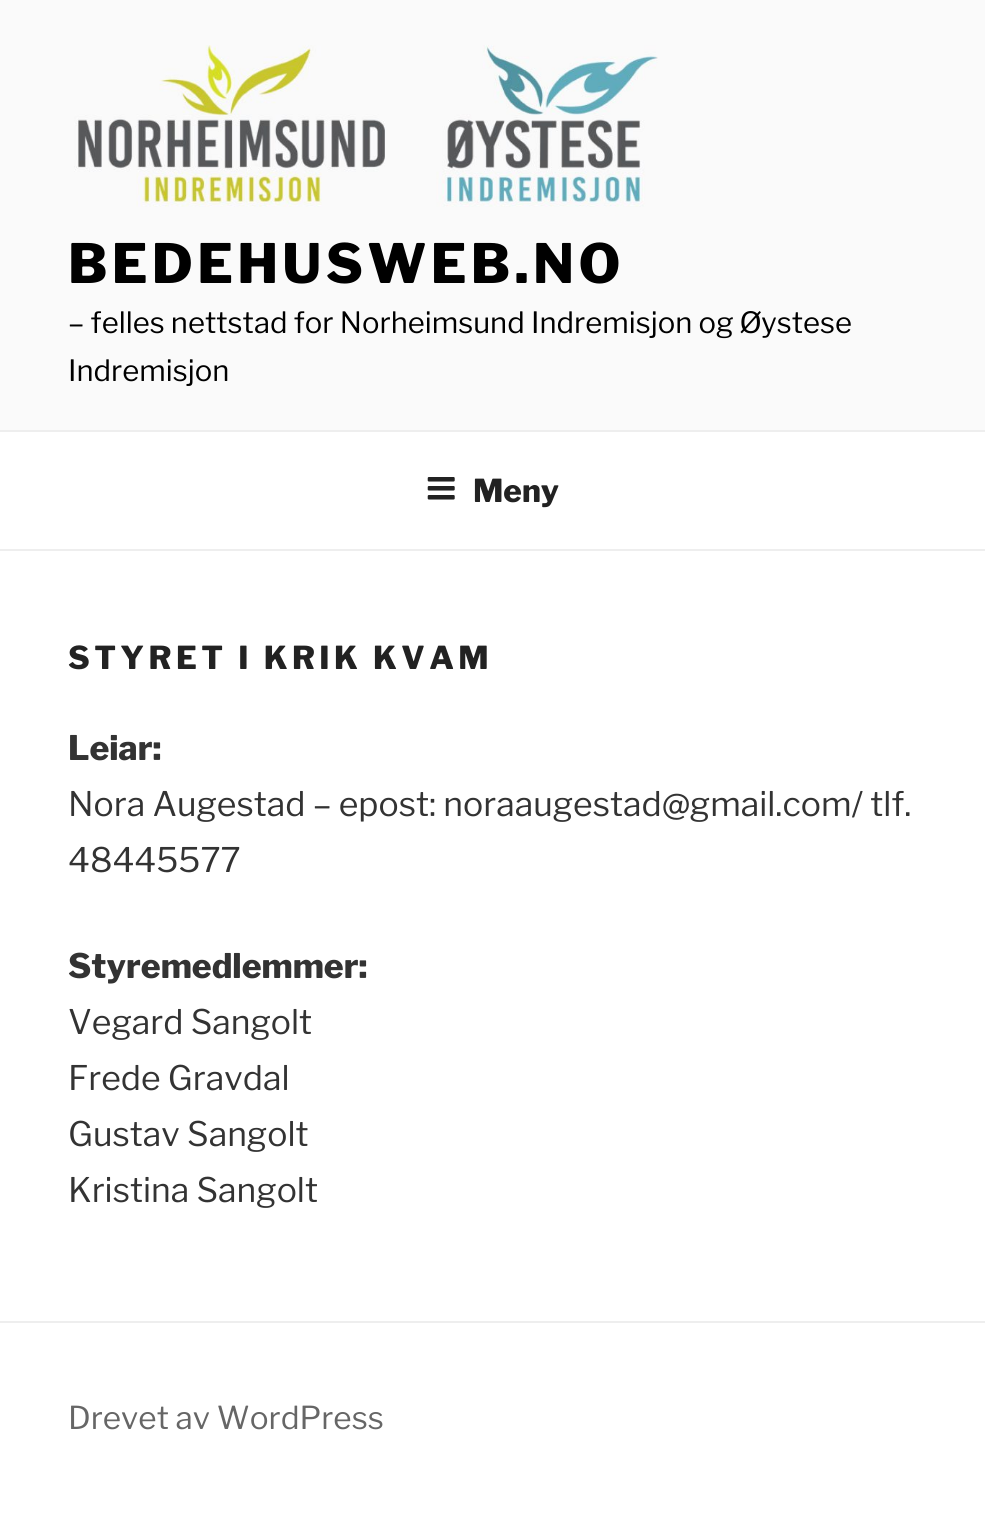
#include <cairo.h>
#include <math.h>
#include <stddef.h>


static void set_color(cairo_t *cr, unsigned color) {
    cairo_set_source_rgb(cr, (color >> 16) / 255.0, (color >> 8 & 255) / 255.0, (color & 255) / 255.0);
}

static void draw_text(cairo_t *cr, double x, double y, const char *s, const char *family, double size, int italic, int bold, unsigned color) {
    cairo_select_font_face(cr, family, italic ? CAIRO_FONT_SLANT_ITALIC : CAIRO_FONT_SLANT_NORMAL,
        bold ? CAIRO_FONT_WEIGHT_BOLD : CAIRO_FONT_WEIGHT_NORMAL);
    cairo_set_font_size(cr, size);
    set_color(cr, color);
    cairo_move_to(cr, x, y);
    cairo_show_text(cr, s);
}

static void draw_spaced(cairo_t *cr, double x, double y, const char *s, double letter, double word) {
    cairo_move_to(cr, x, y);
    while (*s) {
        char ch[5] = {0};
        int n = 0;
        do ch[n++] = *s++; while ((*s & 0xC0) == 0x80);
        cairo_show_text(cr, ch);
        cairo_rel_move_to(cr, letter + word * (*ch == ' '), 0);
    }
}

static void fill_rect(cairo_t *cr, double x, double y, double w, double h, unsigned color) {
    set_color(cr, color);
    cairo_rectangle(cr, x, y, w, h);
    cairo_fill(cr);
}

static void draw_image(cairo_t *cr, const char *path, double x, double y, double w, double h) {
    cairo_surface_t *image = cairo_image_surface_create_from_png(path);
    cairo_save(cr);
    cairo_set_source_surface(cr, image, x, y);
    cairo_rectangle(cr, x, y, w, h);
    cairo_fill(cr);
    cairo_restore(cr);
    cairo_surface_destroy(image);
}

int main(void) {
    cairo_surface_t *surface = cairo_image_surface_create(CAIRO_FORMAT_RGB24, 985, 1516);
    cairo_t *cr = cairo_create(surface);
    cairo_font_options_t *options = cairo_font_options_create();
    cairo_font_options_set_hint_metrics(options, CAIRO_HINT_METRICS_OFF);
    cairo_font_options_set_hint_style(options, CAIRO_HINT_STYLE_NONE);
    cairo_set_font_options(cr, options);
    cairo_set_miter_limit(cr, 4);
    set_color(cr, 0xFFFFFF);
    cairo_paint(cr);
    fill_rect(cr, 0, 0, 985, 430, 0xFAFAFA);
    draw_image(cr, "assets/img1.png", 74, 45, 584, 162);
    cairo_select_font_face(cr, "Libre Franklin Thin", CAIRO_FONT_SLANT_NORMAL, CAIRO_FONT_WEIGHT_NORMAL);
    cairo_set_font_size(cr, 54);
    set_color(cr, 0x000000);
    draw_spaced(cr, 68, 283, "BEDEHUSWEB.NO", 4.25, 0);
    draw_text(cr, 68, 333, "– felles nettstad for Norheimsund Indremisjon og Øystese", "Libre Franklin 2 Thin", 29.25, 0, 0, 0x000000);
    draw_text(cr, 68, 381, "Indremisjon", "Libre Franklin 2 Thin", 29.25, 0, 0, 0x000000);
    fill_rect(cr, 0, 430, 985, 2, 0xEEEEEE);
    fill_rect(cr, 0, 549, 985, 2, 0xEEEEEE);
    draw_image(cr, "assets/img2.png", 427, 477, 28, 23);
    draw_text(cr, 473, 502, "Meny", "Libre Franklin Thin", 31.5, 0, 0, 0x222222);
    draw_spaced(cr, 68, 669, "STYRET I KRIK KVAM", 4.4, 0);
    draw_text(cr, 68, 760, "Leiar:", "Libre Franklin Thin", 33.75, 0, 0, 0x333333);
    draw_text(cr, 68, 816, "Nora Augestad – epost: noraaugestad@gmail.com/ tlf.", "Libre Franklin 2 Thin", 33.75, 0, 0, 0x333333);
    draw_text(cr, 68, 872, "48445577", "Libre Franklin 2 Thin", 33.75, 0, 0, 0x333333);
    draw_text(cr, 68, 978, "Styremedlemmer:", "Libre Franklin Thin", 33.75, 0, 0, 0x333333);
    draw_text(cr, 68, 1034, "Vegard Sangolt", "Libre Franklin 2 Thin", 33.75, 0, 0, 0x333333);
    draw_text(cr, 68, 1090, "Frede Gravdal", "Libre Franklin 2 Thin", 33.75, 0, 0, 0x333333);
    draw_text(cr, 68, 1146, "Gustav Sangolt", "Libre Franklin 2 Thin", 33.75, 0, 0, 0x333333);
    draw_text(cr, 68, 1202, "Kristina Sangolt", "Libre Franklin 2 Thin", 33.75, 0, 0, 0x333333);
    fill_rect(cr, 0, 1321, 985, 2, 0xEEEEEE);
    draw_text(cr, 68, 1429, "Drevet av WordPress", "Libre Franklin 2 Thin", 31.5, 0, 0, 0x666666);
    cairo_surface_write_to_png(surface, "output.png");
    cairo_font_options_destroy(options);
    cairo_destroy(cr);
    cairo_surface_destroy(surface);
    return 0;
}
